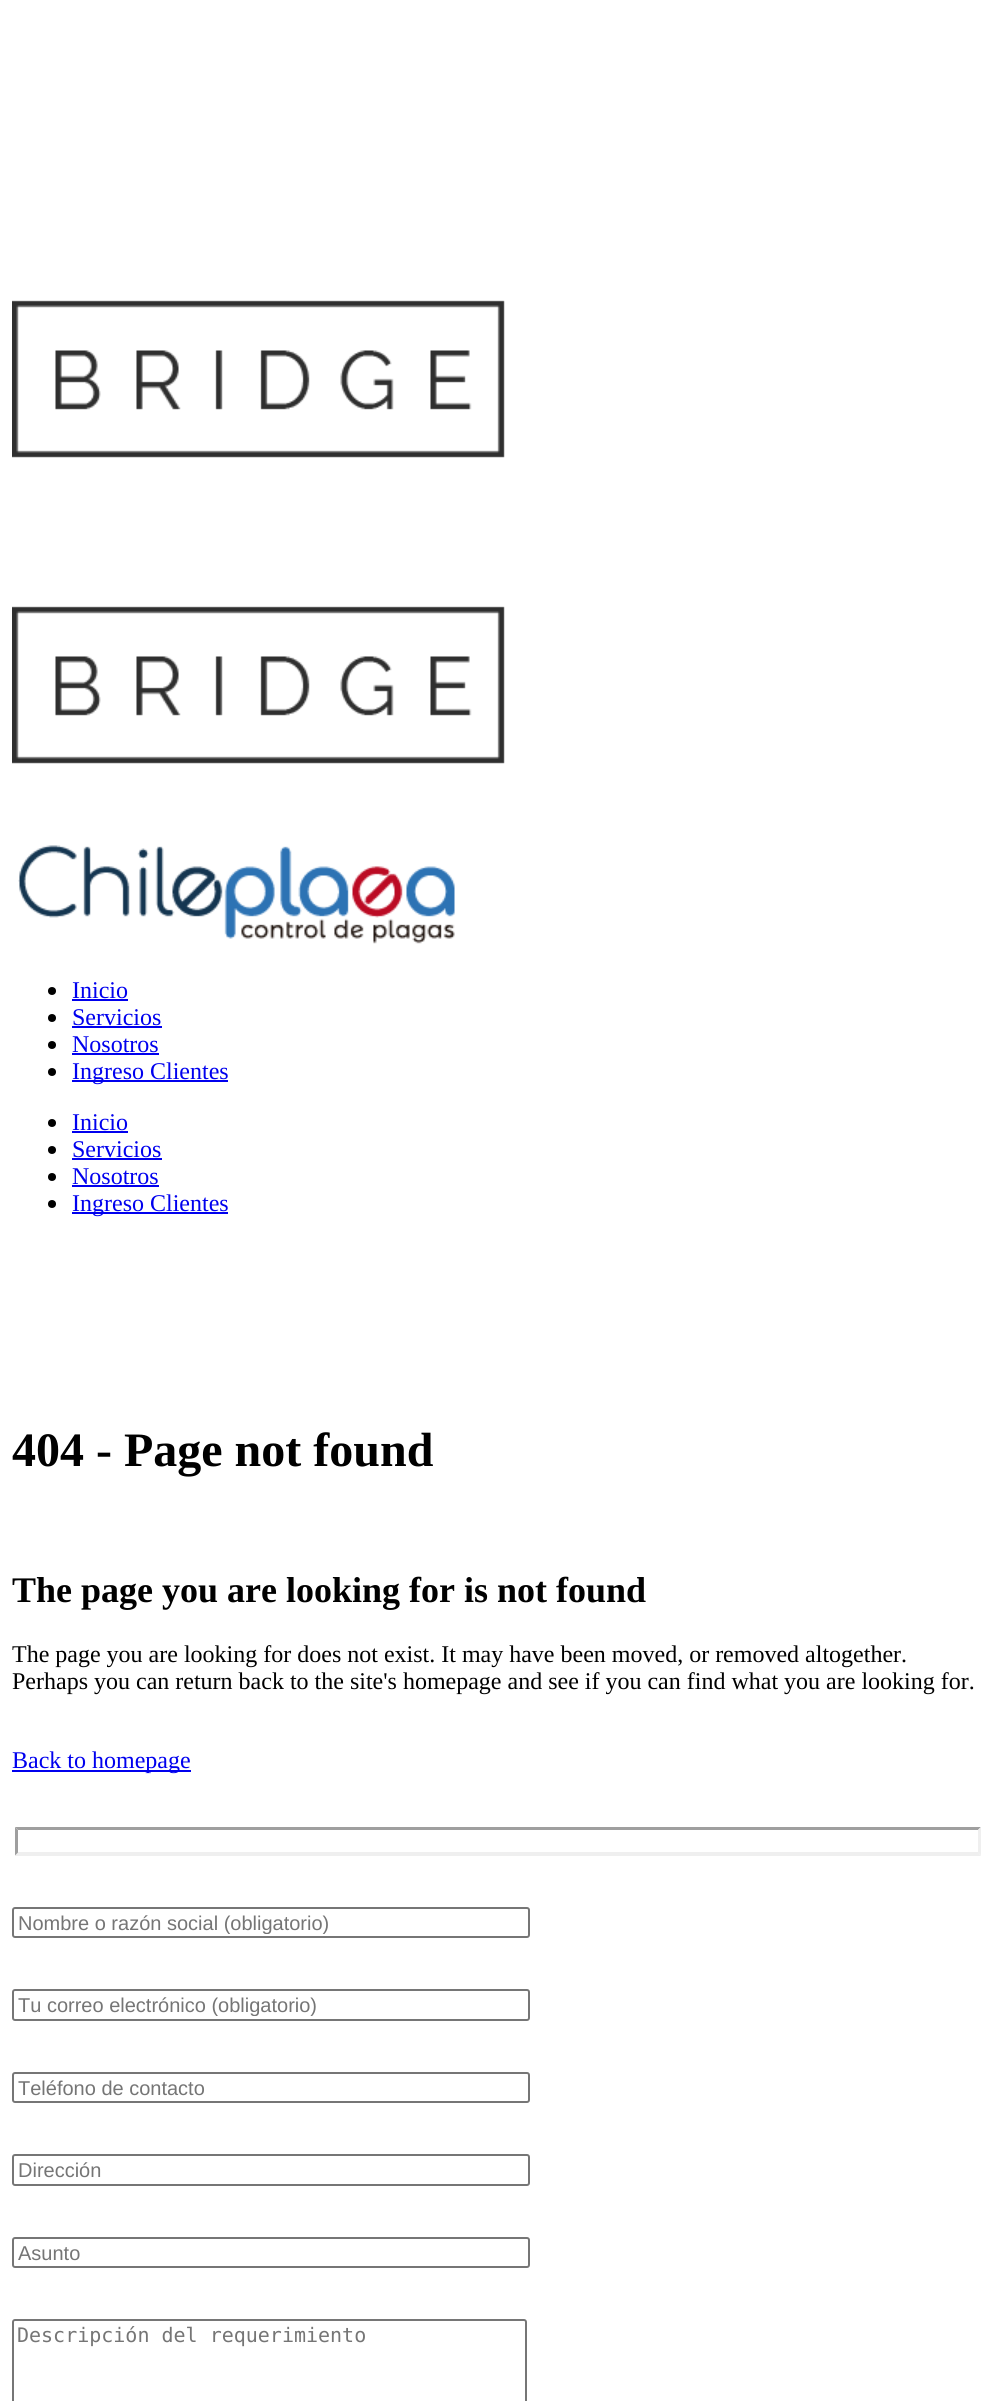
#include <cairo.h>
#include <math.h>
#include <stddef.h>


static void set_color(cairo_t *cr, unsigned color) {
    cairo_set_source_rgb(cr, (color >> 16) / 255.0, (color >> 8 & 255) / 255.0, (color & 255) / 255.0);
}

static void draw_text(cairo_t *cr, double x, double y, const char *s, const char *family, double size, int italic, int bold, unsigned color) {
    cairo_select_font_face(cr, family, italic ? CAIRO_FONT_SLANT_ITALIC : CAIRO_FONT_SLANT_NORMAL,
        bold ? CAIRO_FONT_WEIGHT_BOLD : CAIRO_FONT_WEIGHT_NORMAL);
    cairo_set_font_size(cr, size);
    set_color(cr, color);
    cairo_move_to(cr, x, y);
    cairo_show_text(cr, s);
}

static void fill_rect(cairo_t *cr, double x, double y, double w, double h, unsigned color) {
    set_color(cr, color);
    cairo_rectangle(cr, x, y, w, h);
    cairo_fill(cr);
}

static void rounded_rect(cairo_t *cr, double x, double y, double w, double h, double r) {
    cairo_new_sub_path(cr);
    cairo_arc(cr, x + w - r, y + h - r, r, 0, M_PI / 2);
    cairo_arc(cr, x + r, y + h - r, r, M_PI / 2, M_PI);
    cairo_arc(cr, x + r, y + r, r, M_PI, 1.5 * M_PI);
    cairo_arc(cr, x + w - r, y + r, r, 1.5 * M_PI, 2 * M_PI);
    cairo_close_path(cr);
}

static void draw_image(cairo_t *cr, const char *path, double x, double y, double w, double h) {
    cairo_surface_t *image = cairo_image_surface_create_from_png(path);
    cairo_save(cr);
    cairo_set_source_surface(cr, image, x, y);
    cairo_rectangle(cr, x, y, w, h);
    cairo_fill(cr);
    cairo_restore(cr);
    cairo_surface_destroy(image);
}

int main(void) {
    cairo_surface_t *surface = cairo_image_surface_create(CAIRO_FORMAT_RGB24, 996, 2401);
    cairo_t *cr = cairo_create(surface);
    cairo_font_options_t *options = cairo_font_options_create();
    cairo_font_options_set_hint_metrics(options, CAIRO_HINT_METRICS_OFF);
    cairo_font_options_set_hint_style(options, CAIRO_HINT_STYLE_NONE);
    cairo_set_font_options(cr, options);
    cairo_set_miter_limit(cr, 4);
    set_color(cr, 0xFFFFFF);
    cairo_paint(cr);
    draw_image(cr, "assets/img1.png", 12, 300, 493, 158);
    draw_image(cr, "assets/img1.png", 12, 606, 493, 158);
    draw_image(cr, "assets/img2.png", 18, 845, 437, 99);
    set_color(cr, 0x000000);
    cairo_arc(cr, 52, 991, 4, 0, 2 * M_PI);
    cairo_fill(cr);
    draw_text(cr, 72, 998, "Inicio", "Liberation Serif", 24, 0, 0, 0x0000EE);
    fill_rect(cr, 72, 999, 56, 2, 0x0000EE);
    set_color(cr, 0x000000);
    cairo_new_path(cr);
    cairo_arc(cr, 52, 1018, 4, 0, 2 * M_PI);
    cairo_fill(cr);
    draw_text(cr, 72, 1025, "Servicios", "Liberation Serif", 24, 0, 0, 0x0000EE);
    fill_rect(cr, 72, 1026, 90, 2, 0x0000EE);
    set_color(cr, 0x000000);
    cairo_new_path(cr);
    cairo_arc(cr, 52, 1045, 4, 0, 2 * M_PI);
    cairo_fill(cr);
    draw_text(cr, 72, 1052, "Nosotros", "Liberation Serif", 24, 0, 0, 0x0000EE);
    fill_rect(cr, 72, 1053, 87, 2, 0x0000EE);
    set_color(cr, 0x000000);
    cairo_new_path(cr);
    cairo_arc(cr, 52, 1072, 4, 0, 2 * M_PI);
    cairo_fill(cr);
    fill_rect(cr, 72, 1080, 156, 2, 0x0000EE);
    draw_text(cr, 72, 1079, "Ingreso Clientes", "Liberation Serif", 24, 0, 0, 0x0000EE);
    set_color(cr, 0x000000);
    cairo_new_path(cr);
    cairo_arc(cr, 52, 1123, 4, 0, 2 * M_PI);
    cairo_fill(cr);
    draw_text(cr, 72, 1130, "Inicio", "Liberation Serif", 24, 0, 0, 0x0000EE);
    fill_rect(cr, 72, 1131, 56, 2, 0x0000EE);
    set_color(cr, 0x000000);
    cairo_new_path(cr);
    cairo_arc(cr, 52, 1150, 4, 0, 2 * M_PI);
    cairo_fill(cr);
    draw_text(cr, 72, 1157, "Servicios", "Liberation Serif", 24, 0, 0, 0x0000EE);
    fill_rect(cr, 72, 1158, 90, 2, 0x0000EE);
    set_color(cr, 0x000000);
    cairo_new_path(cr);
    cairo_arc(cr, 52, 1177, 4, 0, 2 * M_PI);
    cairo_fill(cr);
    draw_text(cr, 72, 1184, "Nosotros", "Liberation Serif", 24, 0, 0, 0x0000EE);
    fill_rect(cr, 72, 1185, 87, 2, 0x0000EE);
    set_color(cr, 0x000000);
    cairo_new_path(cr);
    cairo_arc(cr, 52, 1204, 4, 0, 2 * M_PI);
    cairo_fill(cr);
    fill_rect(cr, 72, 1212, 156, 2, 0x0000EE);
    draw_text(cr, 72, 1211, "Ingreso Clientes", "Liberation Serif", 24, 0, 0, 0x0000EE);
    draw_text(cr, 12, 1466, "404 - Page not found", "Liberation Serif", 48, 0, 1, 0x000000);
    draw_text(cr, 12, 1602, "The page you are looking for is not found", "Liberation Serif", 36, 0, 1, 0x000000);
    draw_text(cr, 12, 1662, "The page you are looking for does not exist. It may have been moved, or removed altogether.", "Liberation Serif", 24, 0, 0, 0x000000);
    draw_text(cr, 12, 1689, "Perhaps you can return back to the site's homepage and see if you can find what you are looking for.", "Liberation Serif", 24, 0, 0, 0x000000);
    fill_rect(cr, 12, 1770, 179, 2, 0x0000EE);
    draw_text(cr, 12, 1768, "Back to homepage", "Liberation Serif", 24, 0, 0, 0x0000EE);
    set_color(cr, 0x9F9F9F);
    cairo_new_path(cr);
    cairo_move_to(cr, 15, 1827);
    cairo_line_to(cr, 981, 1827);
    cairo_line_to(cr, 978, 1830);
    cairo_line_to(cr, 18, 1830);
    cairo_close_path(cr);
    cairo_fill(cr);
    set_color(cr, 0xEFEFEF);
    cairo_new_path(cr);
    cairo_move_to(cr, 981, 1827);
    cairo_line_to(cr, 981, 1855.5);
    cairo_line_to(cr, 978, 1852.5);
    cairo_line_to(cr, 978, 1830);
    cairo_close_path(cr);
    cairo_fill(cr);
    cairo_new_path(cr);
    cairo_move_to(cr, 981, 1856);
    cairo_line_to(cr, 15, 1856);
    cairo_line_to(cr, 18, 1852);
    cairo_line_to(cr, 978, 1852);
    cairo_close_path(cr);
    cairo_fill(cr);
    set_color(cr, 0x9F9F9F);
    cairo_new_path(cr);
    cairo_move_to(cr, 15, 1855.5);
    cairo_line_to(cr, 15, 1827);
    cairo_line_to(cr, 18, 1830);
    cairo_line_to(cr, 18, 1852.5);
    cairo_close_path(cr);
    cairo_fill(cr);
    rounded_rect(cr, 13, 1908, 516, 29, 2);
    set_color(cr, 0x767676);
    cairo_stroke(cr);
    cairo_save(cr);
    cairo_rectangle(cr, 18, 1911, 506, 23);
    cairo_clip(cr);
    draw_text(cr, 18, 1930, "Nombre o razón social (obligatorio)", "Liberation Sans", 20, 0, 0, 0x757575);
    cairo_restore(cr);
    rounded_rect(cr, 13, 1990, 516, 30, 2);
    cairo_stroke(cr);
    cairo_save(cr);
    cairo_rectangle(cr, 18, 1994, 506, 22);
    cairo_clip(cr);
    draw_text(cr, 18, 2012, "Tu correo electrónico (obligatorio)", "Liberation Sans", 20, 0, 0, 0x757575);
    cairo_restore(cr);
    rounded_rect(cr, 13, 2073, 516, 29, 2);
    cairo_stroke(cr);
    draw_text(cr, 18, 2095, "Teléfono de contacto", "Liberation Sans", 20, 0, 0, 0x757575);
    rounded_rect(cr, 13, 2155, 516, 30, 2);
    set_color(cr, 0x767676);
    cairo_stroke(cr);
    draw_text(cr, 18, 2177, "Dirección", "Liberation Sans", 20, 0, 0, 0x757575);
    rounded_rect(cr, 13, 2238, 516, 29, 2);
    set_color(cr, 0x767676);
    cairo_stroke(cr);
    draw_text(cr, 18, 2260, "Asunto", "Liberation Sans", 20, 0, 0, 0x757575);
    rounded_rect(cr, 13, 2320, 513, 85, 2);
    set_color(cr, 0x767676);
    cairo_stroke(cr);
    draw_text(cr, 17, 2342, "Descripción del requerimiento", "DejaVu Sans Mono", 20, 0, 0, 0x757575);
    cairo_surface_write_to_png(surface, "output.png");
    cairo_font_options_destroy(options);
    cairo_destroy(cr);
    cairo_surface_destroy(surface);
    return 0;
}
